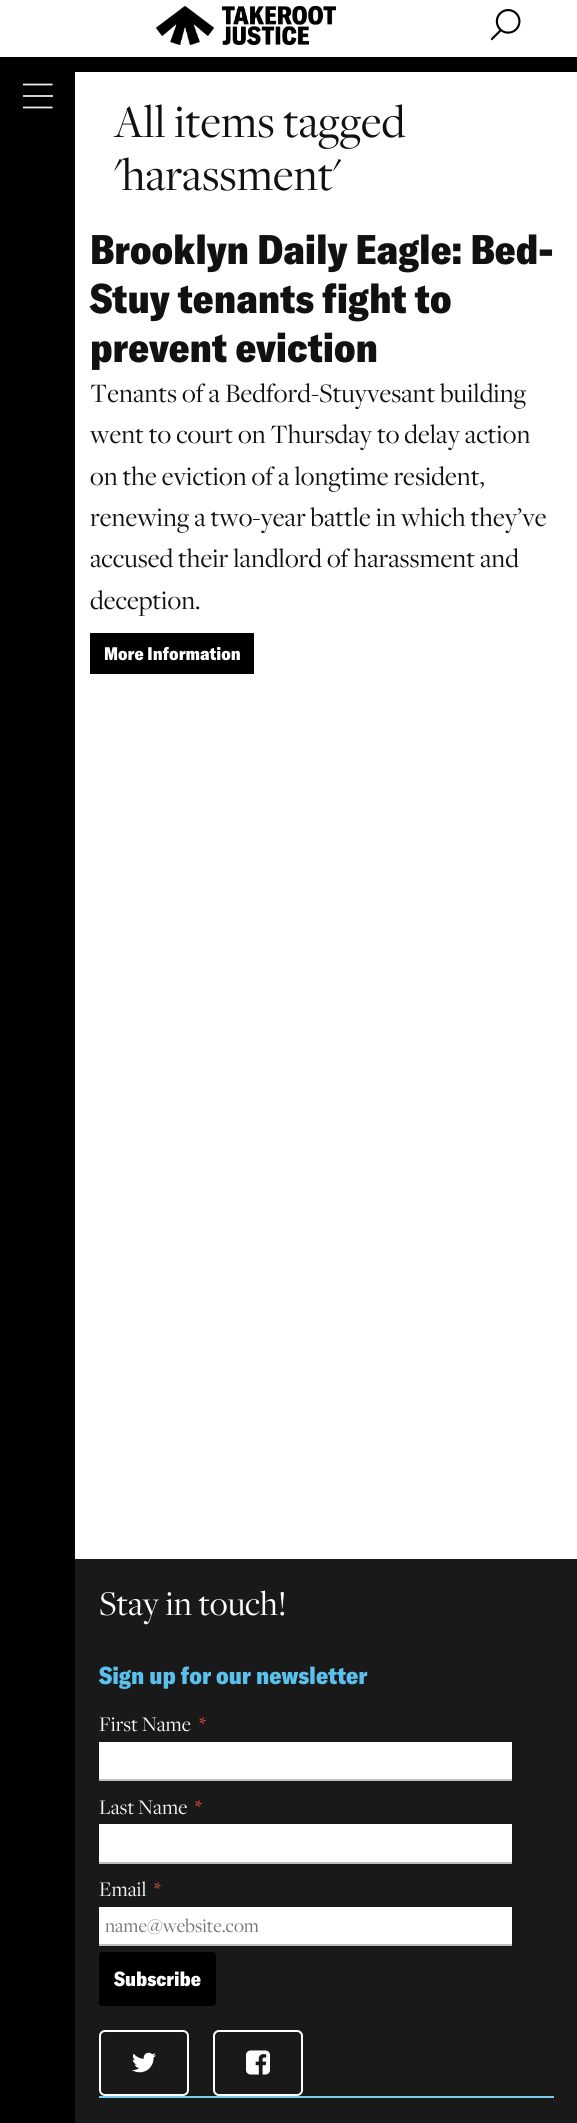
#include <cairo.h>
#include <math.h>
#include <stddef.h>


static void set_color(cairo_t *cr, unsigned color) {
    cairo_set_source_rgb(cr, (color >> 16) / 255.0, (color >> 8 & 255) / 255.0, (color & 255) / 255.0);
}

static void draw_text(cairo_t *cr, double x, double y, const char *s, const char *family, double size, int italic, int bold, unsigned color) {
    cairo_select_font_face(cr, family, italic ? CAIRO_FONT_SLANT_ITALIC : CAIRO_FONT_SLANT_NORMAL,
        bold ? CAIRO_FONT_WEIGHT_BOLD : CAIRO_FONT_WEIGHT_NORMAL);
    cairo_set_font_size(cr, size);
    set_color(cr, color);
    cairo_move_to(cr, x, y);
    cairo_show_text(cr, s);
}

static void fill_rect(cairo_t *cr, double x, double y, double w, double h, unsigned color) {
    set_color(cr, color);
    cairo_rectangle(cr, x, y, w, h);
    cairo_fill(cr);
}

static void rounded_rect(cairo_t *cr, double x, double y, double w, double h, double r) {
    cairo_new_sub_path(cr);
    cairo_arc(cr, x + w - r, y + h - r, r, 0, M_PI / 2);
    cairo_arc(cr, x + r, y + h - r, r, M_PI / 2, M_PI);
    cairo_arc(cr, x + r, y + r, r, M_PI, 1.5 * M_PI);
    cairo_arc(cr, x + w - r, y + r, r, 1.5 * M_PI, 2 * M_PI);
    cairo_close_path(cr);
}

static void draw_image(cairo_t *cr, const char *path, double x, double y, double w, double h) {
    cairo_surface_t *image = cairo_image_surface_create_from_png(path);
    cairo_save(cr);
    cairo_set_source_surface(cr, image, x, y);
    cairo_rectangle(cr, x, y, w, h);
    cairo_fill(cr);
    cairo_restore(cr);
    cairo_surface_destroy(image);
}

int main(void) {
    cairo_surface_t *surface = cairo_image_surface_create(CAIRO_FORMAT_RGB24, 577, 2123);
    cairo_t *cr = cairo_create(surface);
    cairo_font_options_t *options = cairo_font_options_create();
    cairo_font_options_set_hint_metrics(options, CAIRO_HINT_METRICS_OFF);
    cairo_font_options_set_hint_style(options, CAIRO_HINT_STYLE_NONE);
    cairo_set_font_options(cr, options);
    cairo_set_miter_limit(cr, 4);
    set_color(cr, 0xFFFFFF);
    cairo_paint(cr);
    draw_image(cr, "assets/img1.png", 156, 6, 180, 39);
    draw_image(cr, "assets/img2.png", 491, 9, 30, 32);
    fill_rect(cr, 0, 57, 75, 2066, 0x000000);
    cairo_save(cr);
    cairo_rectangle(cr, 23, 81, 30, 30);
    cairo_clip(cr);
    cairo_new_path(cr);
    cairo_move_to(cr, 22.5, 84.5);
    cairo_line_to(cr, 52.5, 84.5);
    set_color(cr, 0xF6F4F3);
    cairo_set_line_width(cr, 1.7);
    cairo_stroke(cr);
    cairo_restore(cr);
    fill_rect(cr, 23, 95, 30, 2, 0xD1CFCF);
    cairo_save(cr);
    cairo_rectangle(cr, 23, 81, 30, 30);
    cairo_clip(cr);
    cairo_new_path(cr);
    cairo_move_to(cr, 22.5, 107.5);
    cairo_line_to(cr, 52.5, 107.5);
    set_color(cr, 0xF6F4F3);
    cairo_set_line_width(cr, 1.7);
    cairo_stroke(cr);
    cairo_restore(cr);
    fill_rect(cr, 75, 57, 502, 15, 0x000000);
    draw_text(cr, 114, 137, "All items tagged", "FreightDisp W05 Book", 48, 0, 0, 0x111111);
    draw_text(cr, 114, 190, "'harassment'", "FreightDisp W05 Book", 48, 0, 0, 0x111111);
    draw_text(cr, 90, 264, "Brooklyn Daily Eagle: Bed-", "GT America Black", 40.75, 0, 0, 0x111111);
    draw_text(cr, 90, 313, "Stuy tenants fight to", "GT America Black", 40.75, 0, 0, 0x111111);
    draw_text(cr, 90, 362, "prevent eviction", "GT America Black", 40.75, 0, 0, 0x111111);
    draw_text(cr, 90, 402, "Tenants of a Bedford-Stuyvesant building", "FreightDisp W05 Book", 27.6, 0, 0, 0x111111);
    draw_text(cr, 90, 443, "went to court on Thursday to delay action", "FreightDisp W05 Book", 27.6, 0, 0, 0x111111);
    draw_text(cr, 90, 485, "on the eviction of a longtime resident,", "FreightDisp W05 Book", 27.6, 0, 0, 0x111111);
    draw_text(cr, 90, 526, "renewing a two-year battle in which they’ve", "FreightDisp W05 Book", 27.6, 0, 0, 0x111111);
    draw_text(cr, 90, 567, "accused their landlord of harassment and", "FreightDisp W05 Book", 27.6, 0, 0, 0x111111);
    draw_text(cr, 90, 609, "deception.", "FreightDisp W05 Book", 27.6, 0, 0, 0x111111);
    fill_rect(cr, 90, 633, 164, 41, 0x000000);
    draw_text(cr, 104, 660, "More Information", "GT America Black", 18, 0, 0, 0xFFFFFF);
    fill_rect(cr, 75, 1559, 502, 564, 0x191919);
    fill_rect(cr, 99, 2096, 455, 2, 0x7BCCF0);
    draw_text(cr, 99, 1615, "Stay in touch!", "FreightDisp W05 Book", 36, 0, 0, 0xFFFFFF);
    draw_text(cr, 99, 1684, "Sign up for our newsletter", "GT America Black", 24, 0, 0, 0x5AC0EC);
    draw_text(cr, 99, 1731, "First Name", "FreightDisp W05 Book", 21.5, 0, 0, 0xF9F7F6);
    draw_text(cr, 199, 1731, "*", "FreightDisp W05 Book", 21.5, 0, 0, 0xF74E37);
    fill_rect(cr, 99, 1742, 413, 37, 0xFFFFFF);
    fill_rect(cr, 99, 1779, 413, 2, 0xBFBFBF);
    draw_text(cr, 99, 1814, "Last Name", "FreightDisp W05 Book", 21.5, 0, 0, 0xF9F7F6);
    draw_text(cr, 195, 1814, "*", "FreightDisp W05 Book", 21.5, 0, 0, 0xF74E37);
    fill_rect(cr, 99, 1824, 413, 38, 0xFFFFFF);
    fill_rect(cr, 99, 1862, 413, 2, 0xBFBFBF);
    draw_text(cr, 99, 1896, "Email", "FreightDisp W05 Book", 21.5, 0, 0, 0xF9F7F6);
    draw_text(cr, 154, 1896, "*", "FreightDisp W05 Book", 21.5, 0, 0, 0xF74E37);
    fill_rect(cr, 99, 1907, 413, 37, 0xFFFFFF);
    fill_rect(cr, 99, 1944, 413, 2, 0xBFBFBF);
    draw_text(cr, 105, 1932, "name@website.com", "FreightDisp W05 Book", 20, 0, 0, 0x757575);
    set_color(cr, 0x000000);
    rounded_rect(cr, 99, 1952, 117, 54, 3);
    cairo_fill(cr);
    draw_text(cr, 114, 1986, "Subscribe", "GT America Black", 20, 0, 0, 0xFFFFFF);
    rounded_rect(cr, 100, 2031, 88, 64, 5);
    cairo_stroke(cr);
    draw_image(cr, "assets/img3.png", 132, 2052, 24, 21);
    rounded_rect(cr, 214, 2031, 88, 64, 5);
    cairo_stroke(cr);
    draw_image(cr, "assets/img4.png", 246, 2050, 24, 25);
    cairo_surface_write_to_png(surface, "output.png");
    cairo_font_options_destroy(options);
    cairo_destroy(cr);
    cairo_surface_destroy(surface);
    return 0;
}
